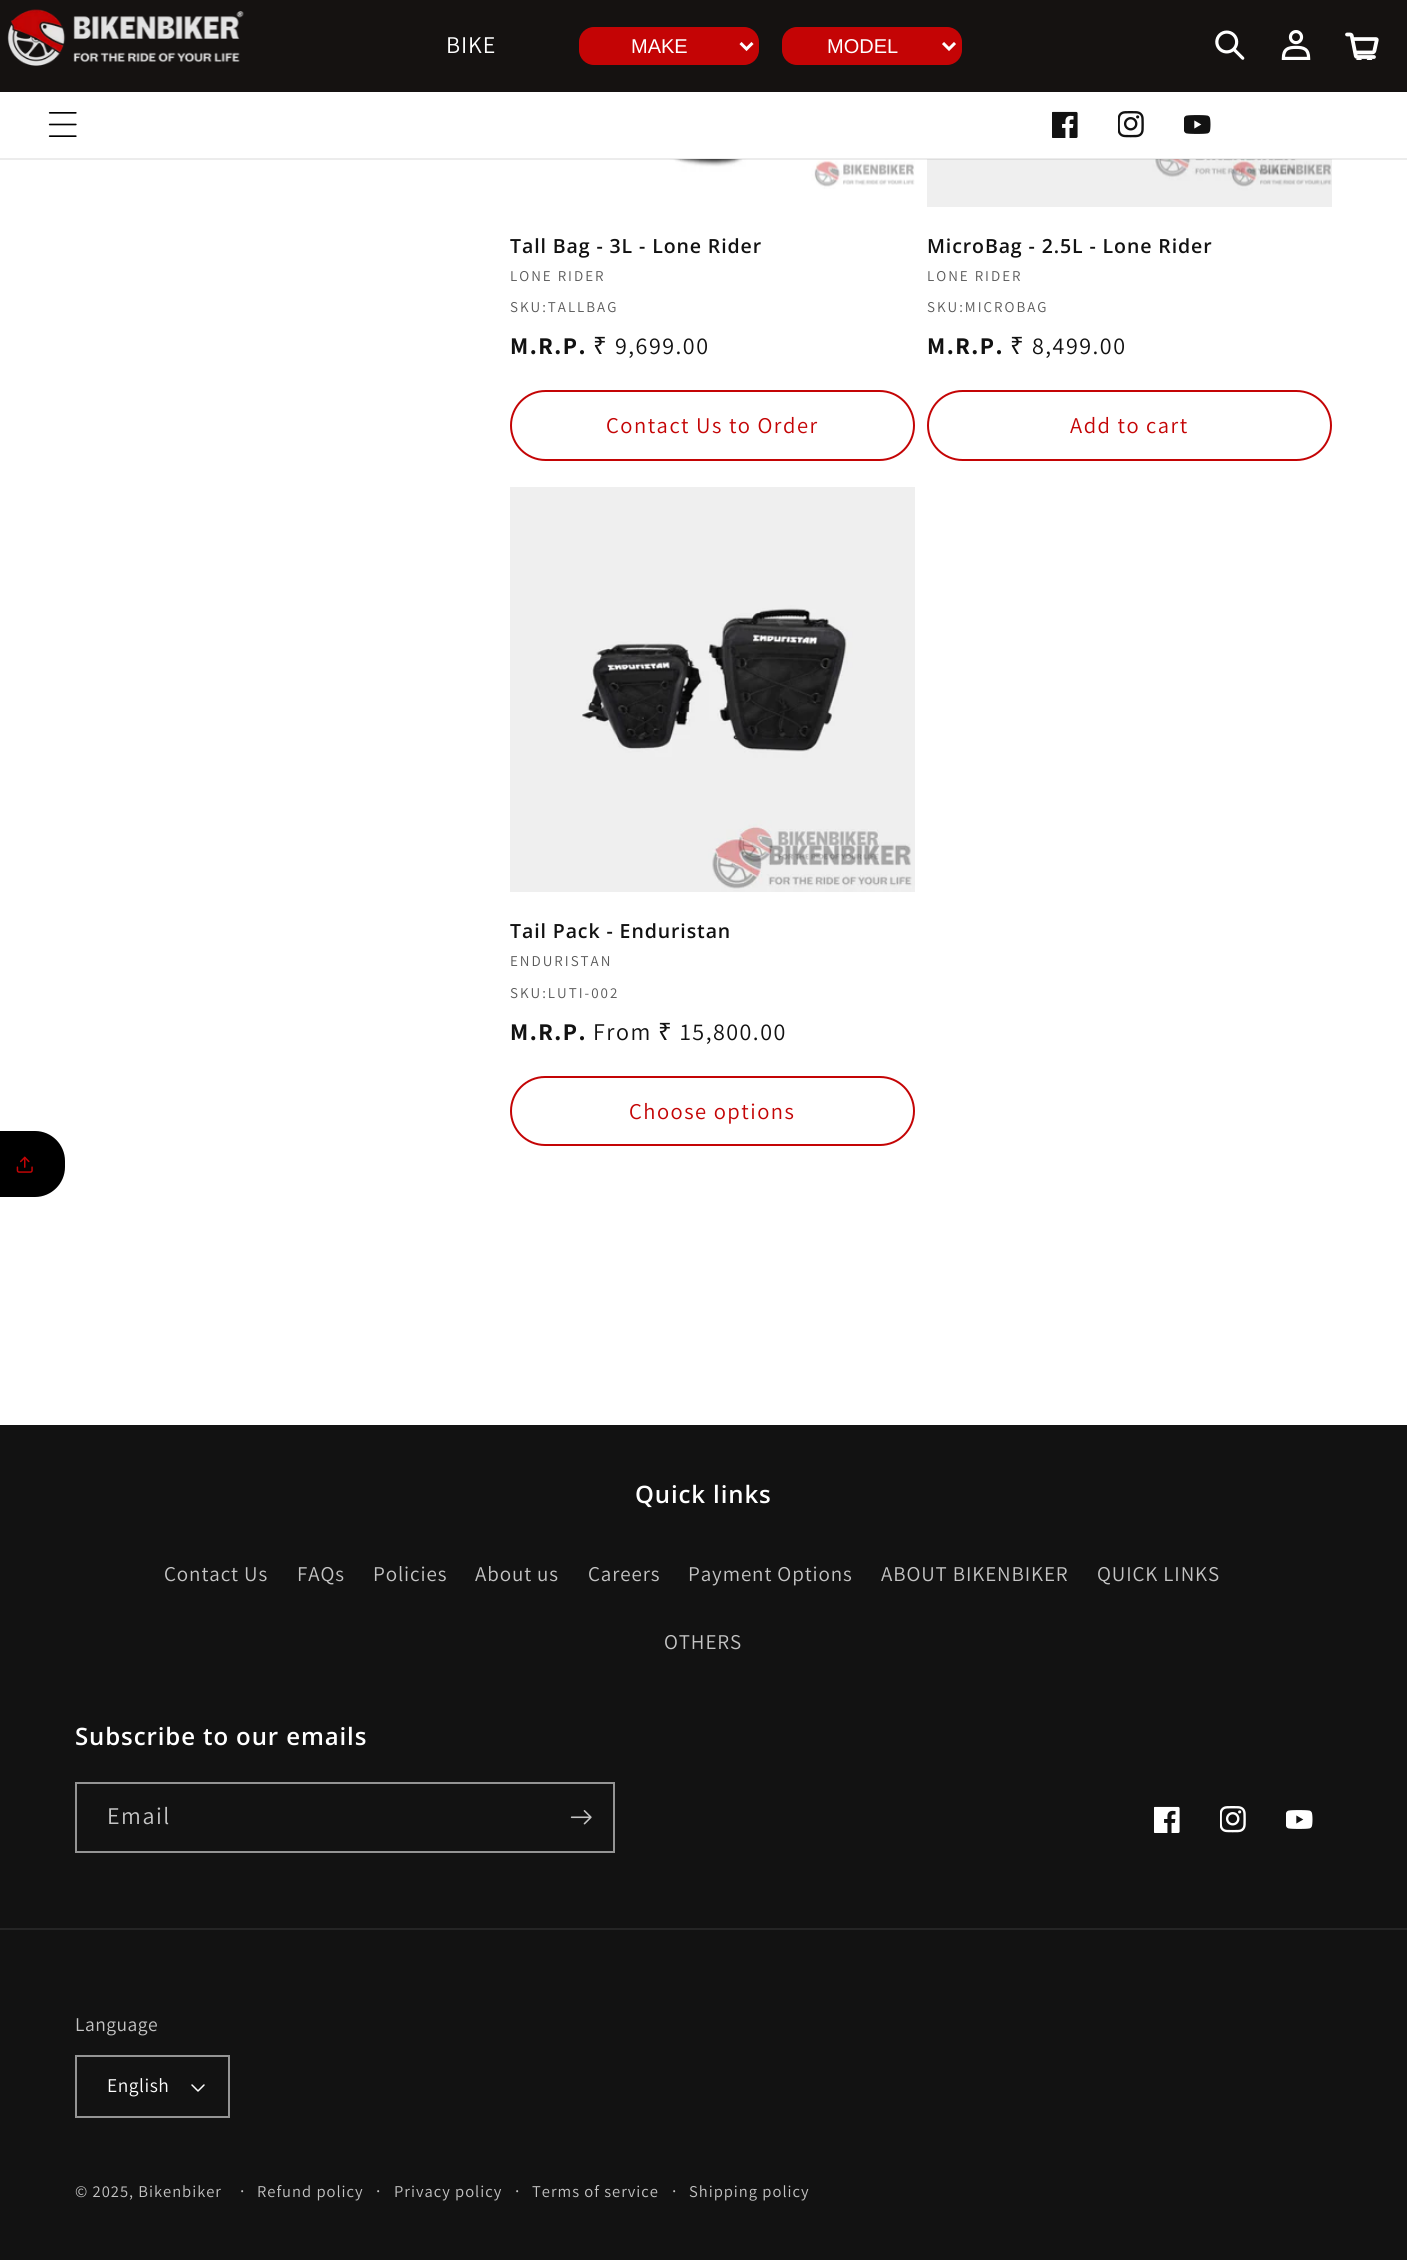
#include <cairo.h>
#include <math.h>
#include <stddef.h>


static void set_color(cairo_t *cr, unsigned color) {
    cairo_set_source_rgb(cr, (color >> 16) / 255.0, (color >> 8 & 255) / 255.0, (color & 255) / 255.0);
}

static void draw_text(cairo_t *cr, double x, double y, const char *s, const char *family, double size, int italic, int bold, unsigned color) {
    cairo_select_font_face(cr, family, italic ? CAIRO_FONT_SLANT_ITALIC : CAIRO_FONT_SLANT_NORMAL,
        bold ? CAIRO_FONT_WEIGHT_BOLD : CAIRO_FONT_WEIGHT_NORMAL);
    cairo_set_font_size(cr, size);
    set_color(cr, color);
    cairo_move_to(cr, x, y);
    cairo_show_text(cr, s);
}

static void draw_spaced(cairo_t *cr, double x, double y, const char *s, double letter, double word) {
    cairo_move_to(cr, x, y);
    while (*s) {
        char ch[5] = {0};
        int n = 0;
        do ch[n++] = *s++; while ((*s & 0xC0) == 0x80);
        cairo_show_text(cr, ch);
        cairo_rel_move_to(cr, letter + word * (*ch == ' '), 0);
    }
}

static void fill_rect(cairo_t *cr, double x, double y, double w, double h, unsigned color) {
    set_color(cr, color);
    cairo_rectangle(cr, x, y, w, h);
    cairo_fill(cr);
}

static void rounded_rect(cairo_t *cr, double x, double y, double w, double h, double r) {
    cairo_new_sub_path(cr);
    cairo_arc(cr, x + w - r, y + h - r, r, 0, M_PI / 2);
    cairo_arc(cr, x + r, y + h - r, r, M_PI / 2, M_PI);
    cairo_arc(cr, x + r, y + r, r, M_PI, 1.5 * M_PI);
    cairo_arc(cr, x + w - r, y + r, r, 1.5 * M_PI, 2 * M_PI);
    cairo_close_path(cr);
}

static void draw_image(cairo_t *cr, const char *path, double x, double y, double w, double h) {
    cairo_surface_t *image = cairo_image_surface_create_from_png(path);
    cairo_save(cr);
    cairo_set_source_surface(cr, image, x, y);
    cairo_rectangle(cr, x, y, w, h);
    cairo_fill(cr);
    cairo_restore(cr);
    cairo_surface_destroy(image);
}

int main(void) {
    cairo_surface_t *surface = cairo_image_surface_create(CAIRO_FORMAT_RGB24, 1407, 2260);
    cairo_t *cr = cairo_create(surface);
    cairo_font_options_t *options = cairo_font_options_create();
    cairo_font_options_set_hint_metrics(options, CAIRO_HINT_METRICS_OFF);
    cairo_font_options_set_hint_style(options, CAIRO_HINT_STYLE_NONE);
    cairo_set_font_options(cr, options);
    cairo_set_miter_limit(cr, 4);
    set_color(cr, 0xFFFFFF);
    cairo_paint(cr);
    draw_image(cr, "assets/img9.png", 642, 159, 273, 30);
    draw_image(cr, "assets/img10.png", 927, 159, 405, 48);
    cairo_set_source_rgba(cr, 0.071, 0.071, 0.071, 0.08);
    cairo_rectangle(cr, 0, 158, 1407, 2);
    cairo_fill(cr);
    fill_rect(cr, 0, 0, 1407, 92, 0x151211);
    draw_image(cr, "assets/img1.png", 7, 9, 237, 57);
    cairo_select_font_face(cr, "Assistant", CAIRO_FONT_SLANT_NORMAL, CAIRO_FONT_WEIGHT_NORMAL);
    cairo_set_font_size(cr, 24);
    set_color(cr, 0xFFFFFF);
    draw_spaced(cr, 446, 53, "BIKE", 0.9, 0);
    set_color(cr, 0xC40405);
    rounded_rect(cr, 579, 27, 180, 38, 15);
    cairo_fill(cr);
    cairo_new_path(cr);
    cairo_move_to(cr, 740.5, 43);
    cairo_line_to(cr, 746.5, 49);
    cairo_line_to(cr, 752.5, 43);
    set_color(cr, 0xFFFFFF);
    cairo_set_line_width(cr, 3);
    cairo_stroke(cr);
    draw_text(cr, 631, 53, "MAKE", "Liberation Sans", 20, 0, 0, 0xFFFFFF);
    set_color(cr, 0xC40405);
    rounded_rect(cr, 782, 27, 180, 38, 15);
    cairo_fill(cr);
    cairo_new_path(cr);
    cairo_move_to(cr, 943, 43);
    cairo_line_to(cr, 949, 49);
    cairo_line_to(cr, 955, 43);
    set_color(cr, 0xFFFFFF);
    cairo_stroke(cr);
    draw_text(cr, 827, 53, "MODEL", "Liberation Sans", 20, 0, 0, 0xFFFFFF);
    draw_image(cr, "assets/img2.png", 1215, 30, 30, 30);
    draw_image(cr, "assets/img3.png", 1281, 30, 30, 30);
    draw_image(cr, "assets/img4.png", 1345, 32, 34, 28);
    draw_image(cr, "assets/img5.png", 48, 112, 29, 25);
    draw_image(cr, "assets/img6.png", 1052, 111, 26, 27);
    draw_image(cr, "assets/img7.png", 1118, 111, 26, 27);
    draw_image(cr, "assets/img8.png", 1184, 115, 27, 19);
    cairo_select_font_face(cr, "Open Sans SemiBold", CAIRO_FONT_SLANT_NORMAL, CAIRO_FONT_WEIGHT_NORMAL);
    cairo_set_font_size(cr, 19.5);
    set_color(cr, 0x121212);
    draw_spaced(cr, 510, 253, "Tall Bag - 3L - Lone Rider", 0.9, 0);
    cairo_select_font_face(cr, "Assistant", CAIRO_FONT_SLANT_NORMAL, CAIRO_FONT_WEIGHT_NORMAL);
    cairo_set_font_size(cr, 15);
    set_color(cr, 0x595959);
    draw_spaced(cr, 510, 281, "LONE RIDER", 2, 0);
    draw_spaced(cr, 510, 312, "SKU:TALLBAG", 2, 0);
    cairo_select_font_face(cr, "Assistant", CAIRO_FONT_SLANT_NORMAL, CAIRO_FONT_WEIGHT_BOLD);
    cairo_set_font_size(cr, 24);
    set_color(cr, 0x121212);
    draw_spaced(cr, 510, 354, "M.R.P.", 1.5, 0);
    cairo_select_font_face(cr, "Noto Sans", CAIRO_FONT_SLANT_NORMAL, CAIRO_FONT_WEIGHT_NORMAL);
    draw_spaced(cr, 593, 354, "₹", 1.5, 0);
    cairo_select_font_face(cr, "Assistant", CAIRO_FONT_SLANT_NORMAL, CAIRO_FONT_WEIGHT_NORMAL);
    draw_spaced(cr, 615, 354, "9,699.00", 1.5, 0);
    rounded_rect(cr, 511, 391, 403, 69, 34.5);
    set_color(cr, 0xC40405);
    cairo_set_line_width(cr, 2);
    cairo_stroke(cr);
    cairo_set_font_size(cr, 22.5);
    draw_spaced(cr, 606, 433, "Contact Us to Order", 1.5, 0);
    cairo_select_font_face(cr, "Open Sans SemiBold", CAIRO_FONT_SLANT_NORMAL, CAIRO_FONT_WEIGHT_NORMAL);
    cairo_set_font_size(cr, 19.5);
    set_color(cr, 0x121212);
    draw_spaced(cr, 927, 253, "MicroBag - 2.5L - Lone Rider", 0.9, 0);
    cairo_select_font_face(cr, "Assistant", CAIRO_FONT_SLANT_NORMAL, CAIRO_FONT_WEIGHT_NORMAL);
    cairo_set_font_size(cr, 15);
    set_color(cr, 0x595959);
    draw_spaced(cr, 927, 281, "LONE RIDER", 2, 0);
    draw_spaced(cr, 927, 312, "SKU:MICROBAG", 2, 0);
    cairo_select_font_face(cr, "Assistant", CAIRO_FONT_SLANT_NORMAL, CAIRO_FONT_WEIGHT_BOLD);
    cairo_set_font_size(cr, 24);
    set_color(cr, 0x121212);
    draw_spaced(cr, 927, 354, "M.R.P.", 1.5, 0);
    cairo_select_font_face(cr, "Noto Sans", CAIRO_FONT_SLANT_NORMAL, CAIRO_FONT_WEIGHT_NORMAL);
    draw_spaced(cr, 1010, 354, "₹", 1.5, 0);
    cairo_select_font_face(cr, "Assistant", CAIRO_FONT_SLANT_NORMAL, CAIRO_FONT_WEIGHT_NORMAL);
    draw_spaced(cr, 1032, 354, "8,499.00", 1.5, 0);
    rounded_rect(cr, 928, 391, 403, 69, 34.5);
    set_color(cr, 0xC40405);
    cairo_stroke(cr);
    cairo_set_font_size(cr, 22.5);
    draw_spaced(cr, 1070, 433, "Add to cart", 1.5, 0);
    draw_image(cr, "assets/img11.png", 510, 487, 405, 405);
    cairo_select_font_face(cr, "Open Sans SemiBold", CAIRO_FONT_SLANT_NORMAL, CAIRO_FONT_WEIGHT_NORMAL);
    cairo_set_font_size(cr, 19.5);
    set_color(cr, 0x121212);
    draw_spaced(cr, 510, 938, "Tail Pack - Enduristan", 0.9, 0);
    cairo_select_font_face(cr, "Assistant", CAIRO_FONT_SLANT_NORMAL, CAIRO_FONT_WEIGHT_NORMAL);
    cairo_set_font_size(cr, 15);
    set_color(cr, 0x595959);
    draw_spaced(cr, 510, 966, "ENDURISTAN", 2, 0);
    draw_spaced(cr, 510, 998, "SKU:LUTI-002", 2, 0);
    cairo_select_font_face(cr, "Assistant", CAIRO_FONT_SLANT_NORMAL, CAIRO_FONT_WEIGHT_BOLD);
    cairo_set_font_size(cr, 24);
    set_color(cr, 0x121212);
    draw_spaced(cr, 510, 1040, "M.R.P.", 1.5, 0);
    cairo_select_font_face(cr, "Assistant", CAIRO_FONT_SLANT_NORMAL, CAIRO_FONT_WEIGHT_NORMAL);
    draw_spaced(cr, 593, 1040, "From", 1.5, 0);
    cairo_select_font_face(cr, "Noto Sans", CAIRO_FONT_SLANT_NORMAL, CAIRO_FONT_WEIGHT_NORMAL);
    draw_spaced(cr, 658, 1040, "₹", 1.5, 0);
    cairo_select_font_face(cr, "Assistant", CAIRO_FONT_SLANT_NORMAL, CAIRO_FONT_WEIGHT_NORMAL);
    draw_spaced(cr, 680, 1040, "15,800.00", 1.5, 0);
    rounded_rect(cr, 511, 1077, 403, 68, 34);
    set_color(cr, 0xC40405);
    cairo_stroke(cr);
    cairo_set_font_size(cr, 22.5);
    draw_spaced(cr, 629, 1119, "Choose options", 1.5, 0);
    set_color(cr, 0x000000);
    cairo_new_path(cr);
    cairo_move_to(cr, 0, 1131);
    cairo_line_to(cr, 35, 1131);
    cairo_curve_to(cr, 51.5, 1131, 65, 1144.5, 65, 1161);
    cairo_line_to(cr, 65, 1167);
    cairo_curve_to(cr, 65, 1183.5, 51.5, 1197, 35, 1197);
    cairo_line_to(cr, 0, 1197);
    cairo_close_path(cr);
    cairo_fill(cr);
    draw_image(cr, "assets/img12.png", 16, 1156, 17, 17);
    fill_rect(cr, 0, 1425, 1407, 835, 0x121212);
    cairo_select_font_face(cr, "Open Sans SemiBold", CAIRO_FONT_SLANT_NORMAL, CAIRO_FONT_WEIGHT_NORMAL);
    cairo_set_font_size(cr, 24);
    set_color(cr, 0xFFFFFF);
    draw_spaced(cr, 635, 1503, "Quick links", 0.9, 0);
    cairo_select_font_face(cr, "Assistant", CAIRO_FONT_SLANT_NORMAL, CAIRO_FONT_WEIGHT_NORMAL);
    cairo_set_font_size(cr, 21);
    set_color(cr, 0xC4C4C4);
    draw_spaced(cr, 164, 1581, "Contact Us", 0.9, 0);
    draw_spaced(cr, 297, 1581, "FAQs", 0.9, 0);
    draw_spaced(cr, 373, 1581, "Policies", 0.9, 0);
    draw_spaced(cr, 475, 1581, "About us", 0.9, 0);
    draw_spaced(cr, 588, 1581, "Careers", 0.9, 0);
    draw_spaced(cr, 688, 1581, "Payment Options", 0.9, 0);
    draw_spaced(cr, 881, 1581, "ABOUT BIKENBIKER", 0.9, 0);
    draw_spaced(cr, 1097, 1581, "QUICK LINKS", 0.9, 0);
    draw_spaced(cr, 664, 1649, "OTHERS", 0.9, 0);
    cairo_select_font_face(cr, "Open Sans SemiBold", CAIRO_FONT_SLANT_NORMAL, CAIRO_FONT_WEIGHT_NORMAL);
    cairo_set_font_size(cr, 24);
    set_color(cr, 0xFFFFFF);
    draw_spaced(cr, 75, 1745, "Subscribe to our emails", 0.9, 0);
    cairo_rectangle(cr, 76, 1783, 538, 69);
    set_color(cr, 0x949494);
    cairo_stroke(cr);
    cairo_select_font_face(cr, "Assistant", CAIRO_FONT_SLANT_NORMAL, CAIRO_FONT_WEIGHT_NORMAL);
    set_color(cr, 0xC4C4C4);
    draw_spaced(cr, 107, 1824, "Email", 1.5, 0);
    draw_image(cr, "assets/img13.png", 570, 1810, 22, 15);
    draw_image(cr, "assets/img14.png", 1154, 1806, 26, 27);
    draw_image(cr, "assets/img15.png", 1220, 1806, 26, 27);
    draw_image(cr, "assets/img16.png", 1286, 1810, 27, 19);
    fill_rect(cr, 0, 1928, 1407, 2, 0x252525);
    cairo_set_font_size(cr, 19.5);
    set_color(cr, 0xC4C4C4);
    draw_spaced(cr, 75, 2031, "Language", 0.5, 0);
    draw_image(cr, "assets/img17.png", 191, 2084, 14, 8);
    cairo_rectangle(cr, 76, 2056, 153, 61);
    set_color(cr, 0x949494);
    cairo_stroke(cr);
    set_color(cr, 0xFFFFFF);
    draw_spaced(cr, 107, 2092, "English", 0.5, 0);
    cairo_set_font_size(cr, 16.5);
    set_color(cr, 0xC4C4C4);
    draw_spaced(cr, 75, 2197, "© 2025, Bikenbiker", 1, 0);
    cairo_set_font_size(cr, 18);
    draw_spaced(cr, 240, 2197, "·", 1, 0);
    cairo_set_font_size(cr, 16.5);
    draw_spaced(cr, 257, 2197, "Refund policy", 1, 0);
    cairo_set_font_size(cr, 18);
    draw_spaced(cr, 376, 2197, "·", 1, 0);
    cairo_set_font_size(cr, 16.5);
    draw_spaced(cr, 394, 2197, "Privacy policy", 1, 0);
    cairo_set_font_size(cr, 18);
    draw_spaced(cr, 515, 2197, "·", 1, 0);
    cairo_set_font_size(cr, 16.5);
    draw_spaced(cr, 532, 2197, "Terms of service", 1, 0);
    cairo_set_font_size(cr, 18);
    draw_spaced(cr, 672, 2197, "·", 1, 0);
    cairo_set_font_size(cr, 16.5);
    draw_spaced(cr, 689, 2197, "Shipping policy", 1, 0);
    cairo_surface_write_to_png(surface, "output.png");
    cairo_font_options_destroy(options);
    cairo_destroy(cr);
    cairo_surface_destroy(surface);
    return 0;
}
